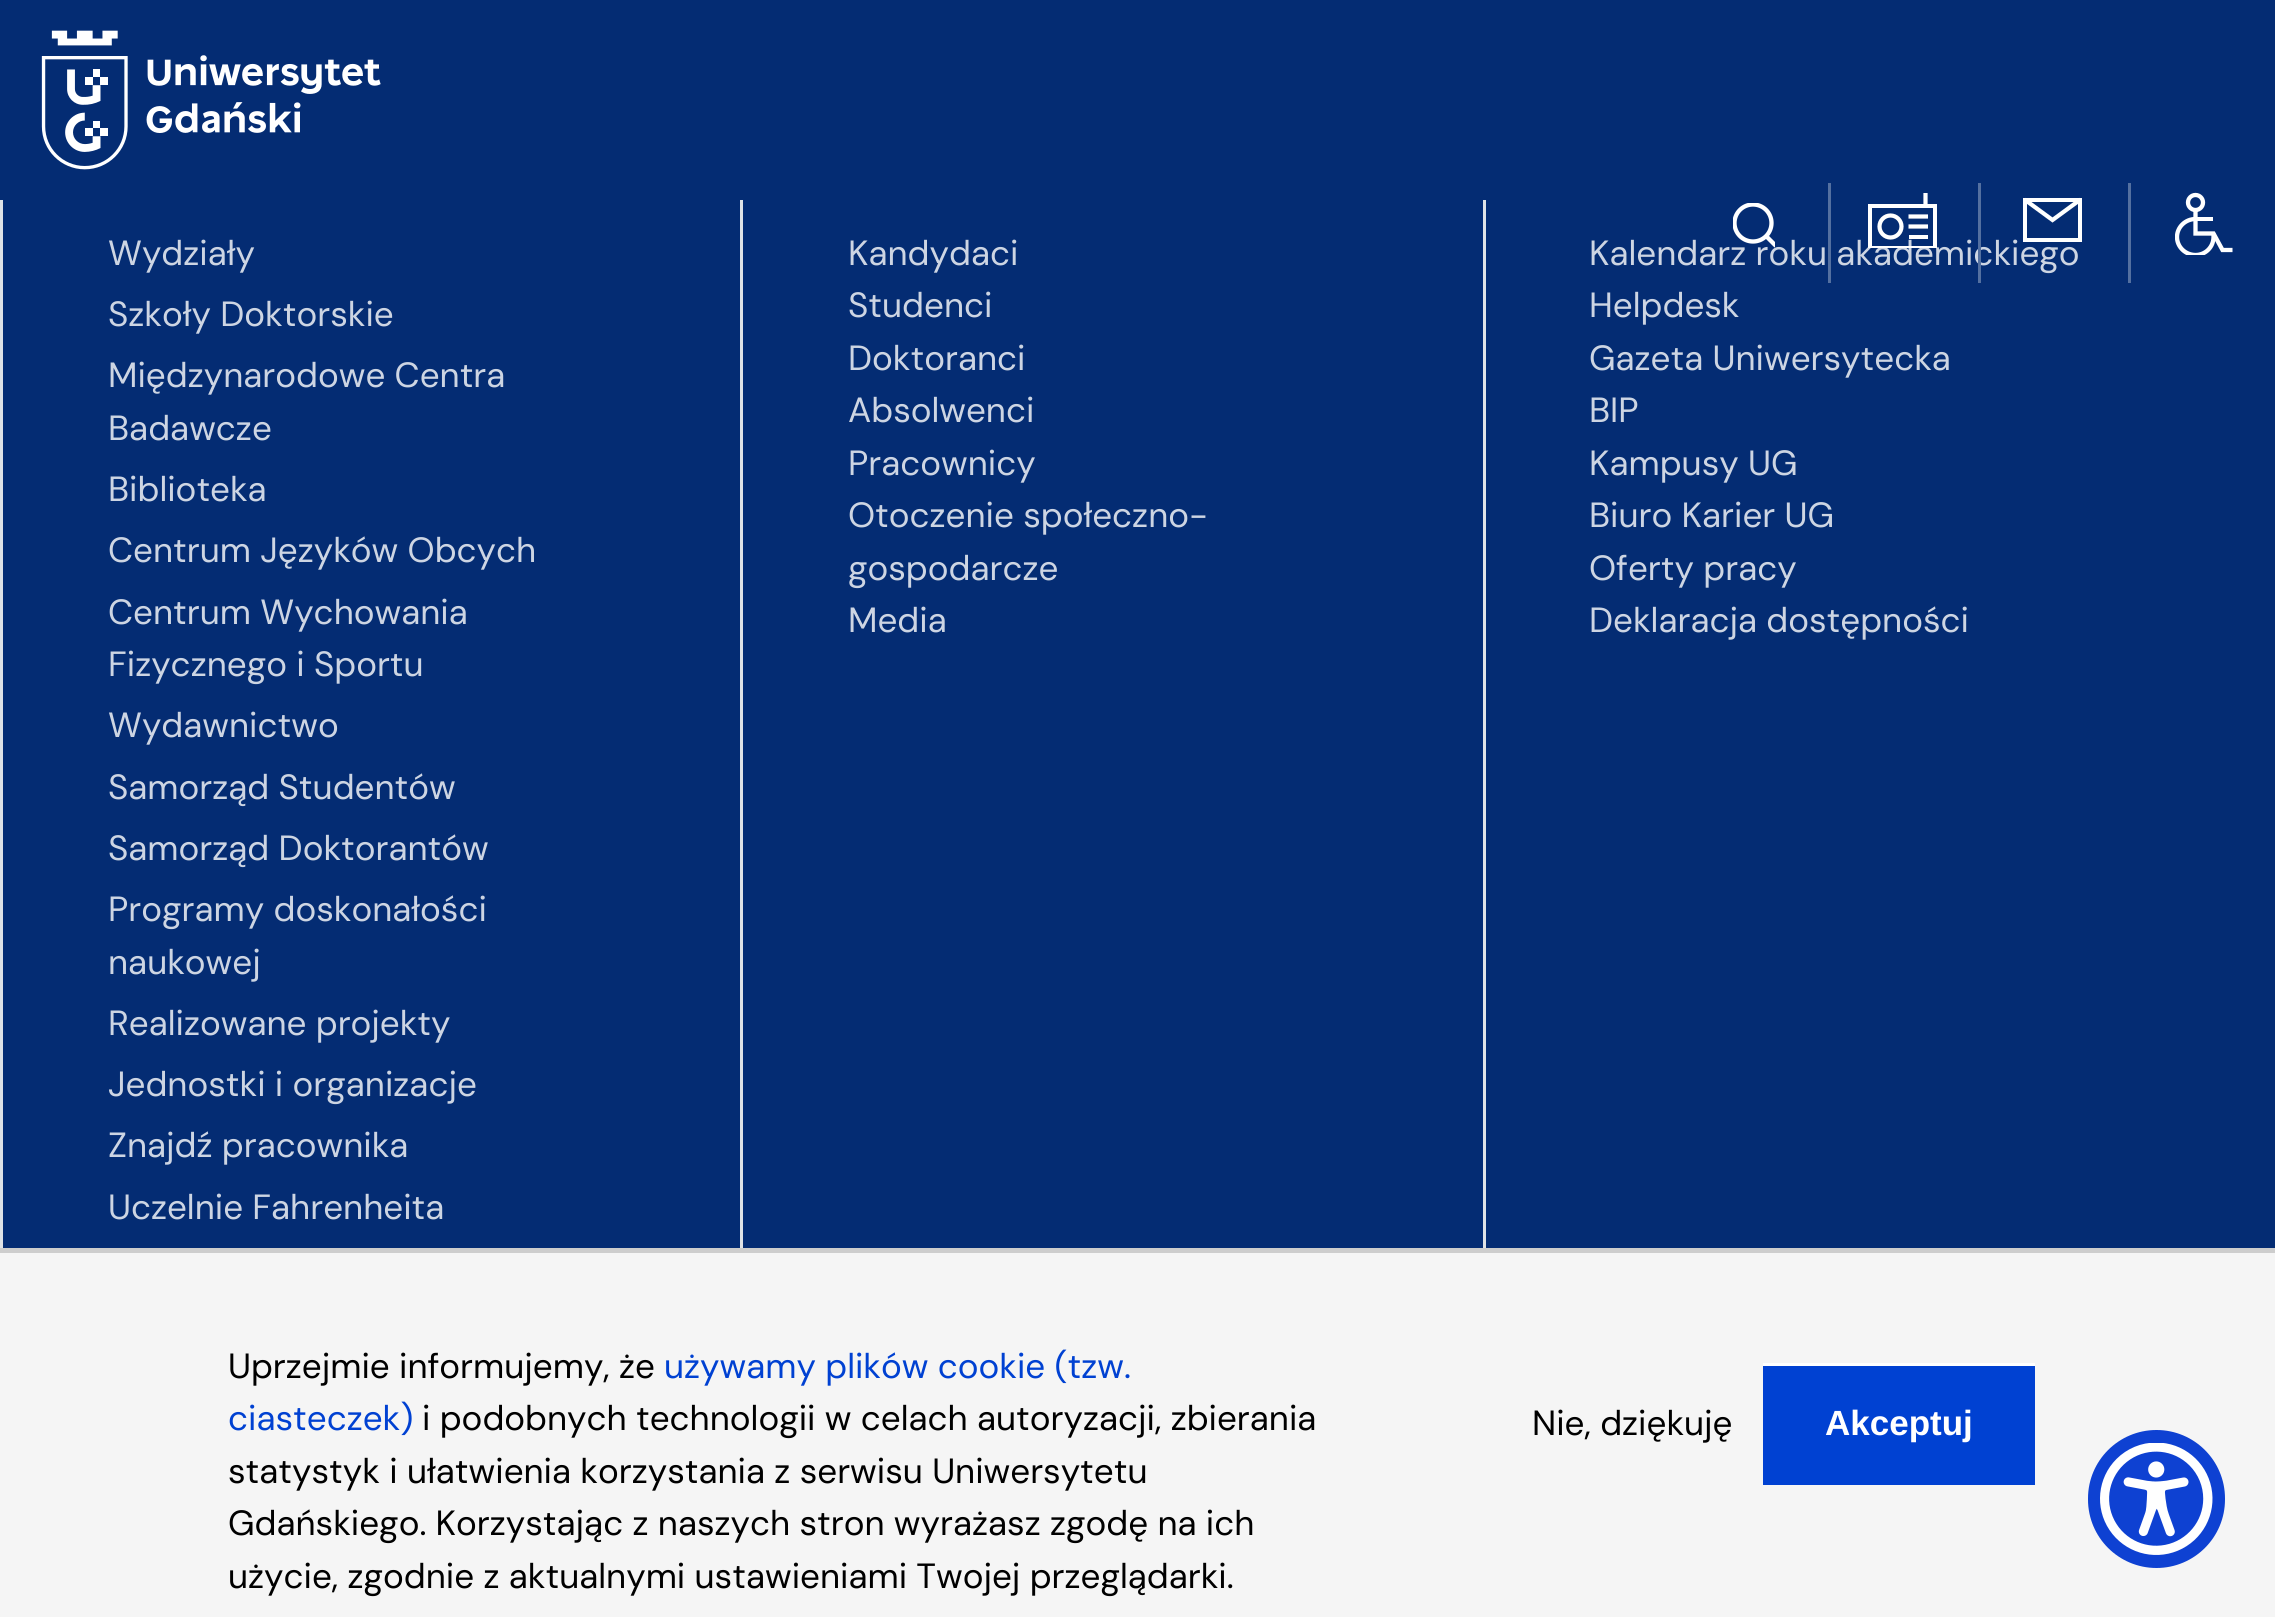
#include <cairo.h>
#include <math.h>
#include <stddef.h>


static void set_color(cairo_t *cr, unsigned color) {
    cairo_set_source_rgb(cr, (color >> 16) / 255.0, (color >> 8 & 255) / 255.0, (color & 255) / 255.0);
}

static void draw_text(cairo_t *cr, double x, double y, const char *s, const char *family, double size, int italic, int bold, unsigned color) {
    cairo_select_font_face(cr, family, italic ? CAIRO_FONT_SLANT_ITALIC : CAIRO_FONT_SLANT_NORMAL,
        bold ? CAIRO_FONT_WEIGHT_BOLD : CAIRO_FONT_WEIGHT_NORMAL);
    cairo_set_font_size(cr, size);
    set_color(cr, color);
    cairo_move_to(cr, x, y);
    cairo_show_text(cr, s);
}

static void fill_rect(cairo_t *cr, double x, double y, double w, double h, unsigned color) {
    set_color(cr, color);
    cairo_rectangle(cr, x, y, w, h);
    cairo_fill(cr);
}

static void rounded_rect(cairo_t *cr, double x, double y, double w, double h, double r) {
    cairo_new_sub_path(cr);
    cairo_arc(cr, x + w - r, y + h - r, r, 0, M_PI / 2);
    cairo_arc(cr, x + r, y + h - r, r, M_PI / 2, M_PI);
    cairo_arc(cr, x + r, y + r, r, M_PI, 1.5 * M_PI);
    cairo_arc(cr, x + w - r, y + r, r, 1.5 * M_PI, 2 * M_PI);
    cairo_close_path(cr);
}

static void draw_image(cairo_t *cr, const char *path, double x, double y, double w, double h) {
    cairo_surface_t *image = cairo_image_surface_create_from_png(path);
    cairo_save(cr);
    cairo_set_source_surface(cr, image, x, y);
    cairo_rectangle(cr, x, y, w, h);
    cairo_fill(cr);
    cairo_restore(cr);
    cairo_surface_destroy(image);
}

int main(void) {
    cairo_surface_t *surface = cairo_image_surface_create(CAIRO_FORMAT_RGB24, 2275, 1617);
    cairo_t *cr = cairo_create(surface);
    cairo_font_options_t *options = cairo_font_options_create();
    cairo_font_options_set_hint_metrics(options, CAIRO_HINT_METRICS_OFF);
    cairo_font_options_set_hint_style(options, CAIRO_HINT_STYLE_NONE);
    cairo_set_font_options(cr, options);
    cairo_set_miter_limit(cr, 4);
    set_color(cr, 0x042C73);
    cairo_paint(cr);
    draw_image(cr, "assets/img1.png", 41, 30, 340, 140);
    draw_text(cr, 1589, 265, "Kalendarz roku akademickiego", "DM Sans", 35, 0, 0, 0xCDD5E3);
    fill_rect(cr, 1828, 183, 3, 100, 0x5470A0);
    cairo_save(cr);
    cairo_rectangle(cr, 1733, 203, 42, 45);
    cairo_clip(cr);
    cairo_arc(cr, 1753, 223, 18.5, 0, 2 * M_PI);
    set_color(cr, 0xFFFFFF);
    cairo_set_line_width(cr, 4.3);
    cairo_stroke(cr);
    cairo_new_path(cr);
    cairo_move_to(cr, 1767, 237);
    cairo_line_to(cr, 1776, 246);
    cairo_stroke(cr);
    cairo_restore(cr);
    fill_rect(cr, 1978, 183, 3, 100, 0x5470A0);
    cairo_save(cr);
    cairo_rectangle(cr, 1868, 193, 70, 55);
    cairo_clip(cr);
    cairo_rectangle(cr, 1870, 206, 65, 42);
    set_color(cr, 0xFFFFFF);
    cairo_set_line_width(cr, 4);
    cairo_stroke(cr);
    cairo_restore(cr);
    cairo_new_path(cr);
    cairo_move_to(cr, 1925.5, 206);
    cairo_line_to(cr, 1925.5, 193);
    set_color(cr, 0xFFFFFF);
    cairo_set_line_width(cr, 4.2);
    cairo_stroke(cr);
    cairo_arc(cr, 1890.5, 226.5, 11, 0, 2 * M_PI);
    cairo_stroke(cr);
    cairo_new_path(cr);
    cairo_move_to(cr, 1908.5, 216.5);
    cairo_line_to(cr, 1928, 216.5);
    cairo_move_to(cr, 1908.5, 226.5);
    cairo_line_to(cr, 1928, 226.5);
    cairo_stroke(cr);
    fill_rect(cr, 1909, 235, 19, 4, 0xFFFFFF);
    fill_rect(cr, 2128, 183, 3, 100, 0x5470A0);
    cairo_rectangle(cr, 2025, 200, 55, 40);
    set_color(cr, 0xFFFFFF);
    cairo_set_line_width(cr, 4);
    cairo_stroke(cr);
    cairo_new_path(cr);
    cairo_move_to(cr, 2024.5, 199.5);
    cairo_line_to(cr, 2052.5, 220);
    cairo_line_to(cr, 2080.5, 199.5);
    cairo_set_line_width(cr, 4.2);
    cairo_stroke(cr);
    cairo_save(cr);
    cairo_rectangle(cr, 2175, 193, 58, 62);
    cairo_clip(cr);
    cairo_new_path(cr);
    cairo_move_to(cr, 2195.5, 219);
    cairo_curve_to(cr, 2185.5, 219, 2177, 227, 2177, 237);
    cairo_curve_to(cr, 2177, 247, 2185.5, 255, 2195.5, 255);
    cairo_curve_to(cr, 2205.5, 255, 2213.5, 247, 2213.5, 237);
    cairo_line_to(cr, 2213.5, 233.5);
    cairo_set_line_width(cr, 4.3);
    cairo_stroke(cr);
    cairo_restore(cr);
    cairo_new_path(cr);
    cairo_move_to(cr, 2195.5, 210);
    cairo_line_to(cr, 2195.5, 233.5);
    cairo_line_to(cr, 2213.5, 233.5);
    cairo_line_to(cr, 2222.5, 250);
    cairo_line_to(cr, 2232.5, 250);
    cairo_set_line_width(cr, 4.3);
    cairo_stroke(cr);
    cairo_arc(cr, 2195.5, 202.5, 7.5, 0, 2 * M_PI);
    cairo_stroke(cr);
    fill_rect(cr, 2193, 217, 20, 4, 0xFFFFFF);
    fill_rect(cr, 0, 200, 3, 1048, 0xDEE2E6);
    draw_text(cr, 108, 265, "Wydziały", "DM Sans", 35, 0, 0, 0xCDD5E3);
    draw_text(cr, 108, 326, "Szkoły Doktorskie", "DM Sans", 35, 0, 0, 0xCDD5E3);
    draw_text(cr, 108, 387, "Międzynarodowe Centra", "DM Sans", 35, 0, 0, 0xCDD5E3);
    draw_text(cr, 108, 440, "Badawcze", "DM Sans", 35, 0, 0, 0xCDD5E3);
    draw_text(cr, 108, 501, "Biblioteka", "DM Sans", 35, 0, 0, 0xCDD5E3);
    draw_text(cr, 108, 562, "Centrum Języków Obcych", "DM Sans", 35, 0, 0, 0xCDD5E3);
    draw_text(cr, 108, 624, "Centrum Wychowania", "DM Sans", 35, 0, 0, 0xCDD5E3);
    draw_text(cr, 108, 676, "Fizycznego i Sportu", "DM Sans", 35, 0, 0, 0xCDD5E3);
    draw_text(cr, 108, 737, "Wydawnictwo", "DM Sans", 35, 0, 0, 0xCDD5E3);
    draw_text(cr, 108, 799, "Samorząd Studentów", "DM Sans", 35, 0, 0, 0xCDD5E3);
    draw_text(cr, 108, 860, "Samorząd Doktorantów", "DM Sans", 35, 0, 0, 0xCDD5E3);
    draw_text(cr, 108, 921, "Programy doskonałości", "DM Sans", 35, 0, 0, 0xCDD5E3);
    draw_text(cr, 108, 974, "naukowej", "DM Sans", 35, 0, 0, 0xCDD5E3);
    draw_text(cr, 108, 1035, "Realizowane projekty", "DM Sans", 35, 0, 0, 0xCDD5E3);
    draw_text(cr, 108, 1096, "Jednostki i organizacje", "DM Sans", 35, 0, 0, 0xCDD5E3);
    draw_text(cr, 108, 1157, "Znajdź pracownika", "DM Sans", 35, 0, 0, 0xCDD5E3);
    draw_text(cr, 108, 1219, "Uczelnie Fahrenheita", "DM Sans", 35, 0, 0, 0xCDD5E3);
    fill_rect(cr, 740, 200, 3, 1048, 0xDEE2E6);
    draw_text(cr, 848, 265, "Kandydaci", "DM Sans", 35, 0, 0, 0xCDD5E3);
    draw_text(cr, 848, 317, "Studenci", "DM Sans", 35, 0, 0, 0xCDD5E3);
    draw_text(cr, 848, 370, "Doktoranci", "DM Sans", 35, 0, 0, 0xCDD5E3);
    draw_text(cr, 848, 422, "Absolwenci", "DM Sans", 35, 0, 0, 0xCDD5E3);
    draw_text(cr, 848, 475, "Pracownicy", "DM Sans", 35, 0, 0, 0xCDD5E3);
    draw_text(cr, 848, 527, "Otoczenie społeczno-", "DM Sans", 35, 0, 0, 0xCDD5E3);
    draw_text(cr, 848, 580, "gospodarcze", "DM Sans", 35, 0, 0, 0xCDD5E3);
    draw_text(cr, 848, 632, "Media", "DM Sans", 35, 0, 0, 0xCDD5E3);
    fill_rect(cr, 1483, 200, 3, 1048, 0xDEE2E6);
    draw_text(cr, 1589, 317, "Helpdesk", "DM Sans", 35, 0, 0, 0xCDD5E3);
    draw_text(cr, 1589, 370, "Gazeta Uniwersytecka", "DM Sans", 35, 0, 0, 0xCDD5E3);
    draw_text(cr, 1589, 422, "BIP", "DM Sans", 35, 0, 0, 0xCDD5E3);
    draw_text(cr, 1589, 475, "Kampusy UG", "DM Sans", 35, 0, 0, 0xCDD5E3);
    draw_text(cr, 1589, 527, "Biuro Karier UG", "DM Sans", 35, 0, 0, 0xCDD5E3);
    draw_text(cr, 1589, 580, "Oferty pracy", "DM Sans", 35, 0, 0, 0xCDD5E3);
    draw_text(cr, 1589, 632, "Deklaracja dostępności", "DM Sans", 35, 0, 0, 0xCDD5E3);
    fill_rect(cr, 0, 1253, 2275, 364, 0xF5F5F5);
    fill_rect(cr, 0, 1248, 2275, 5, 0xCDCDCD);
    draw_text(cr, 228, 1378, "Uprzejmie informujemy, że", "DM Sans", 35, 0, 0, 0x000000);
    draw_text(cr, 664, 1378, "używamy plików cookie (tzw.", "DM Sans", 35, 0, 0, 0x0041D2);
    draw_text(cr, 228, 1430, "ciasteczek)", "DM Sans", 35, 0, 0, 0x0041D2);
    draw_text(cr, 422, 1430, "i podobnych technologii w celach autoryzacji, zbierania", "DM Sans", 35, 0, 0, 0x000000);
    draw_text(cr, 228, 1483, "statystyk i ułatwienia korzystania z serwisu Uniwersytetu", "DM Sans", 35, 0, 0, 0x000000);
    draw_text(cr, 228, 1535, "Gdańskiego. Korzystając z naszych stron wyrażasz zgodę na ich", "DM Sans", 35, 0, 0, 0x000000);
    draw_text(cr, 228, 1588, "użycie, zgodnie z aktualnymi ustawieniami Twojej przeglądarki.", "DM Sans", 35, 0, 0, 0x000000);
    draw_text(cr, 1532, 1435, "Nie, dziękuję", "DM Sans", 35, 0, 0, 0x000000);
    fill_rect(cr, 1763, 1366, 272, 119, 0x0041D2);
    fill_rect(cr, 1763, 1363, 272, 3, 0xFFFFFF);
    draw_text(cr, 1825, 1435, "Akceptuj", "Liberation Sans", 35, 0, 1, 0xFFFFFF);
    set_color(cr, 0x0E41D2);
    rounded_rect(cr, 2088, 1430, 137, 138, 68.5);
    cairo_fill(cr);
    draw_image(cr, "assets/img2.png", 2100, 1443, 113, 112);
    cairo_surface_write_to_png(surface, "output.png");
    cairo_font_options_destroy(options);
    cairo_destroy(cr);
    cairo_surface_destroy(surface);
    return 0;
}
